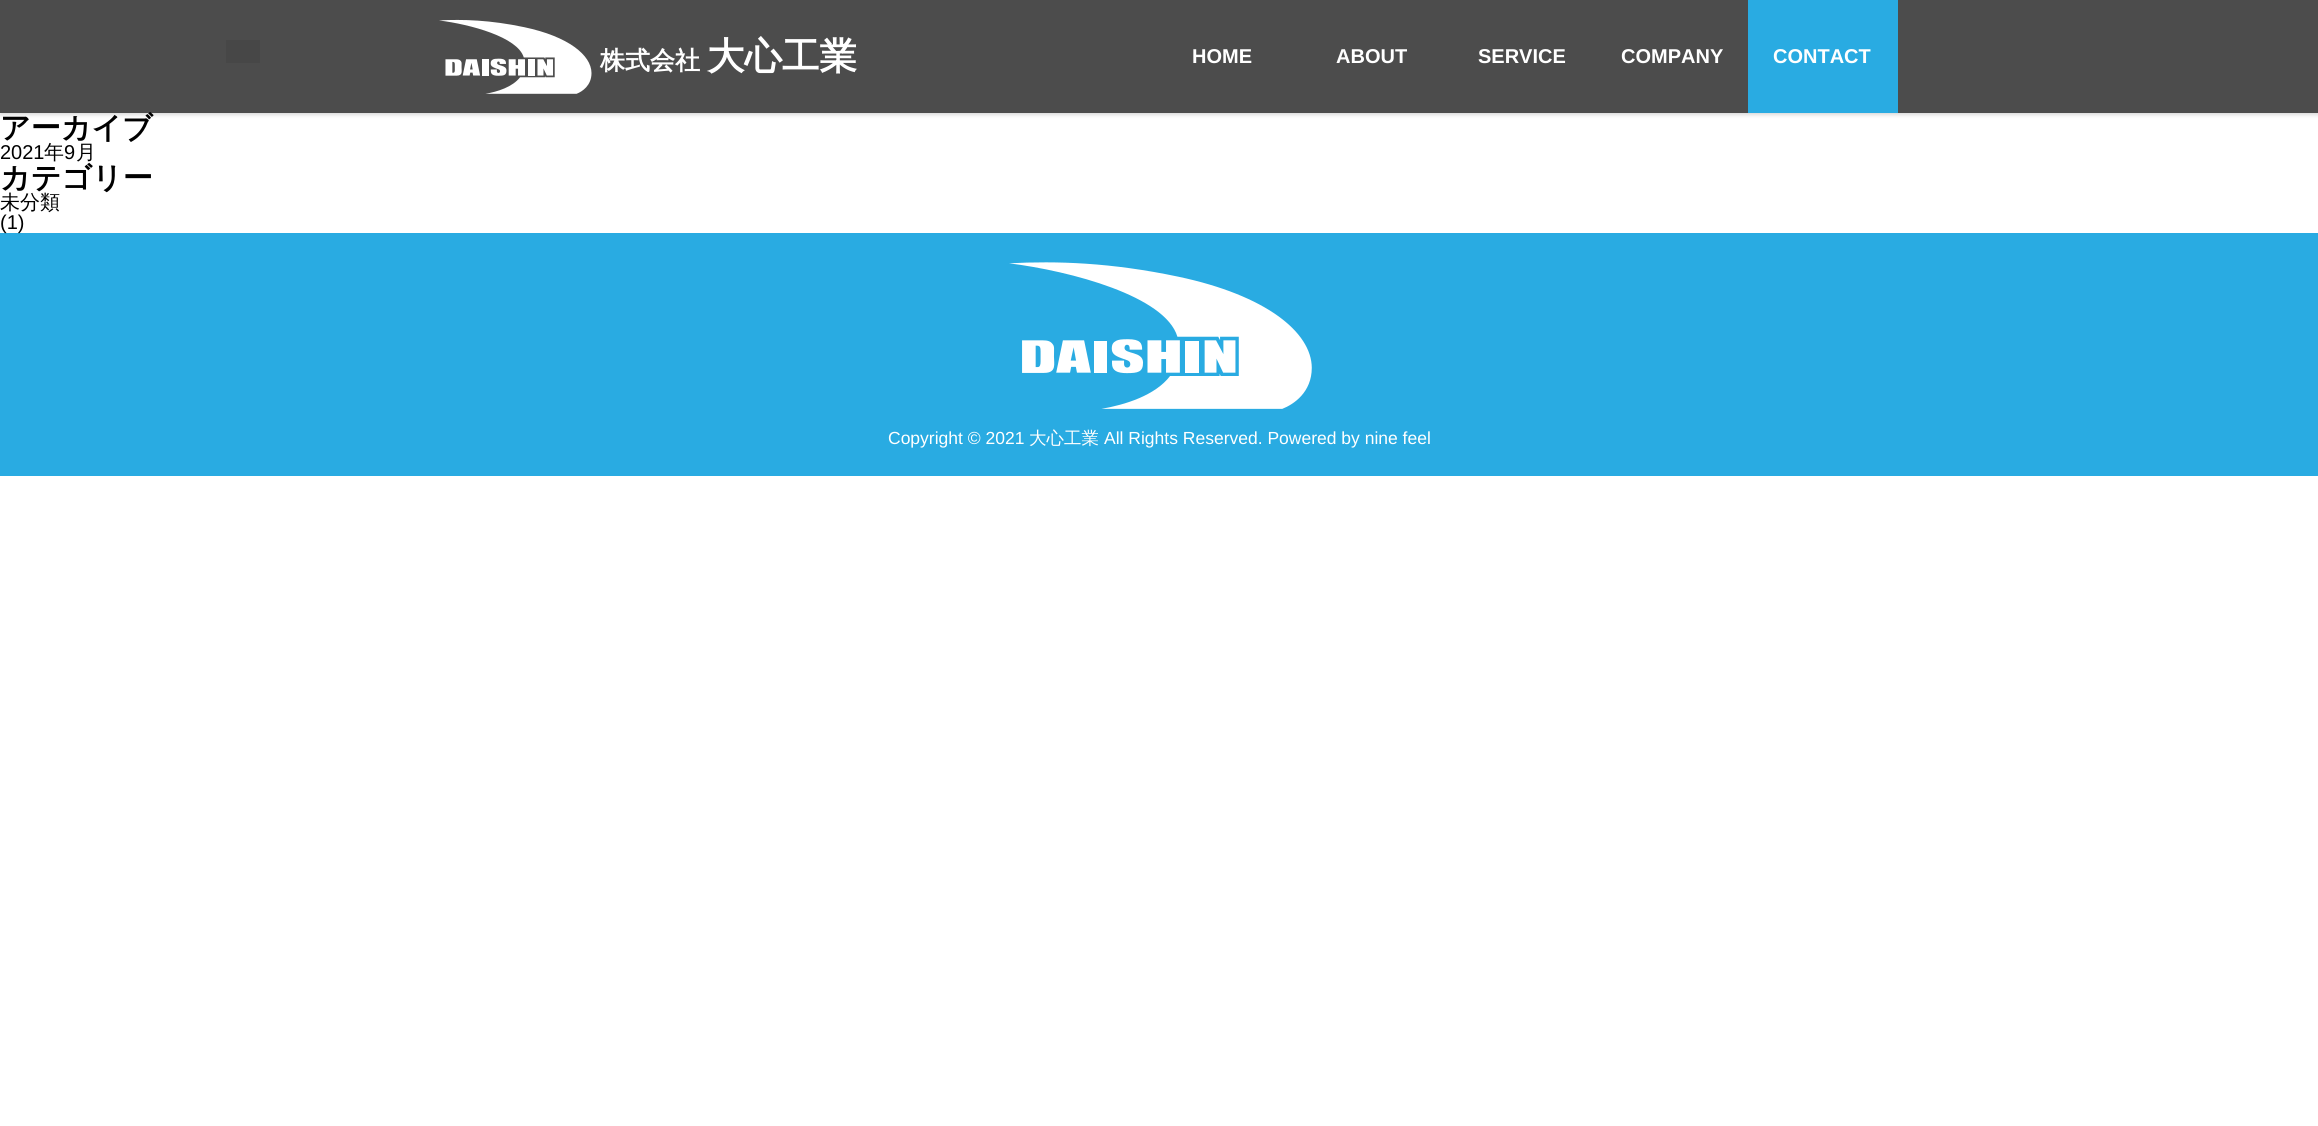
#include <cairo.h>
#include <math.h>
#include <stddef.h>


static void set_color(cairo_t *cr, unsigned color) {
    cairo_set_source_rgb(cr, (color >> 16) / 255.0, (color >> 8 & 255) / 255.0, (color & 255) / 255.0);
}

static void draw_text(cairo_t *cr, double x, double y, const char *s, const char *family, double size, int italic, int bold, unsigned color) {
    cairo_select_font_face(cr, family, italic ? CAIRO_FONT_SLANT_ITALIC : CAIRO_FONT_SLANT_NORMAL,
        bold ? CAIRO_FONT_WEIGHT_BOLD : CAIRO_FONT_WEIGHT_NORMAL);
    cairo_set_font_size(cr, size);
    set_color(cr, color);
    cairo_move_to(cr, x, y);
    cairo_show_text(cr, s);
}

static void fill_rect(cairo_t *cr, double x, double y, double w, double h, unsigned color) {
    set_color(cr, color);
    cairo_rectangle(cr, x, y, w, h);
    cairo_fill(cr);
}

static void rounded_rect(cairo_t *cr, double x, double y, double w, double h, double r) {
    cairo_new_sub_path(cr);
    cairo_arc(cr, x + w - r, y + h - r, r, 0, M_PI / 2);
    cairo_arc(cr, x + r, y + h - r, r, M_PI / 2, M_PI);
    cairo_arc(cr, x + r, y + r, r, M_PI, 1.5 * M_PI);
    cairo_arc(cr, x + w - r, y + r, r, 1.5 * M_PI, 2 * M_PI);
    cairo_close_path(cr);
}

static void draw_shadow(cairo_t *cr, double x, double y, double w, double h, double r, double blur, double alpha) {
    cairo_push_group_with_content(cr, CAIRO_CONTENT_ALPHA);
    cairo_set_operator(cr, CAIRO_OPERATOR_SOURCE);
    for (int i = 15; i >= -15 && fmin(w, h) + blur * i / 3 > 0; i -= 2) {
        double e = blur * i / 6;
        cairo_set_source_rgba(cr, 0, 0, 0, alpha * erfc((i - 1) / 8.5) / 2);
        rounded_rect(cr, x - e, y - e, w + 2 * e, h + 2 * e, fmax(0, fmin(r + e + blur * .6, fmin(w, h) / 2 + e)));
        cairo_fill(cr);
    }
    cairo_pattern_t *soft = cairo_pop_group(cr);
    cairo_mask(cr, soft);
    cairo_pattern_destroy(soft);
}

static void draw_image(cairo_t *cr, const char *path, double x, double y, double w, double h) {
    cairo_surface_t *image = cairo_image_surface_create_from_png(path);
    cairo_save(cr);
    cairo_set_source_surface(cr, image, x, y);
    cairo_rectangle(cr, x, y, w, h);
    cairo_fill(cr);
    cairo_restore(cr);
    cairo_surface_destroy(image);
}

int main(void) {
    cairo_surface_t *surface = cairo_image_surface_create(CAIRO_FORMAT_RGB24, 2318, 1126);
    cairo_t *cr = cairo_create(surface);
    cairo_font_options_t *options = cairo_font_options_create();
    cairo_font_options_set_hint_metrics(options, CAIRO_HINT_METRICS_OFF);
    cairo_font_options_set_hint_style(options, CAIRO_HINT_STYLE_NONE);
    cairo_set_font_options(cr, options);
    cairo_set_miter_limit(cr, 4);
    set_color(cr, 0xFFFFFF);
    cairo_paint(cr);
    fill_rect(cr, 226, 40, 34, 23, 0xEFEFEF);
    cairo_save(cr);
    cairo_set_fill_rule(cr, CAIRO_FILL_RULE_EVEN_ODD);
    cairo_new_path(cr);
    cairo_move_to(cr, 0, 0);
    cairo_line_to(cr, 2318, 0);
    cairo_line_to(cr, 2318, 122);
    cairo_line_to(cr, 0, 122);
    cairo_close_path(cr);
    cairo_move_to(cr, 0, 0);
    cairo_line_to(cr, 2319, 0);
    cairo_line_to(cr, 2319, 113);
    cairo_line_to(cr, 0, 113);
    cairo_close_path(cr);
    cairo_clip(cr);
    set_color(cr, 0x000000);
    draw_shadow(cr, 0, 3, 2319, 112, 0, 2, 0.15);
    cairo_restore(cr);
    draw_text(cr, 0, 138, "アーカイブ", "WenQuanYi Zen Hei", 30, 0, 1, 0x000000);
    cairo_set_source_rgba(cr, 0, 0, 0, 0.7);
    cairo_rectangle(cr, 0, 0, 2318, 113);
    cairo_fill(cr);
    draw_image(cr, "assets/img1.png", 439, 19, 153, 75);
    draw_text(cr, 600, 69, "株式会社", "WenQuanYi Zen Hei", 25, 0, 1, 0xFFFFFF);
    draw_text(cr, 707, 69, "大心工業", "WenQuanYi Zen Hei", 37.5, 0, 1, 0xFFFFFF);
    draw_text(cr, 1192, 63, "HOME", "Liberation Sans", 20, 0, 1, 0xFFFFFF);
    draw_text(cr, 1336, 63, "ABOUT", "Liberation Sans", 20, 0, 1, 0xFFFFFF);
    draw_text(cr, 1478, 63, "SERVICE", "Liberation Sans", 20, 0, 1, 0xFFFFFF);
    draw_text(cr, 1621, 63, "COMPANY", "Liberation Sans", 20, 0, 1, 0xFFFFFF);
    fill_rect(cr, 1748, 0, 150, 113, 0x29ABE2);
    draw_text(cr, 1773, 63, "CONTACT", "Liberation Sans", 20, 0, 1, 0xFFFFFF);
    draw_text(cr, 0, 159, "2021", "Liberation Sans", 20, 0, 0, 0x000000);
    draw_text(cr, 44, 159, "年", "WenQuanYi Zen Hei Medium", 20, 0, 0, 0x000000);
    draw_text(cr, 64, 159, "9", "Liberation Sans", 20, 0, 0, 0x000000);
    draw_text(cr, 76, 159, "月", "WenQuanYi Zen Hei Medium", 20, 0, 0, 0x000000);
    draw_text(cr, 0, 188, "カテゴリー", "WenQuanYi Zen Hei", 30, 0, 1, 0x000000);
    draw_text(cr, 0, 209, "未分類", "WenQuanYi Zen Hei Medium", 20, 0, 0, 0x000000);
    fill_rect(cr, 0, 233, 2318, 243, 0x29ABE2);
    draw_text(cr, 0, 229, "(1)", "Liberation Sans", 20, 0, 0, 0x000000);
    draw_image(cr, "assets/img2.png", 1009, 262, 303, 147);
    draw_text(cr, 888, 444, "Copyright © 2021", "Liberation Sans", 17.5, 0, 0, 0xFFFFFF);
    draw_text(cr, 1029, 444, "大心工業", "WenQuanYi Zen Hei Medium", 17.5, 0, 0, 0xFFFFFF);
    draw_text(cr, 1104, 444, "All Rights Reserved. Powered by nine feel", "Liberation Sans", 17.5, 0, 0, 0xFFFFFF);
    cairo_surface_write_to_png(surface, "output.png");
    cairo_font_options_destroy(options);
    cairo_destroy(cr);
    cairo_surface_destroy(surface);
    return 0;
}
